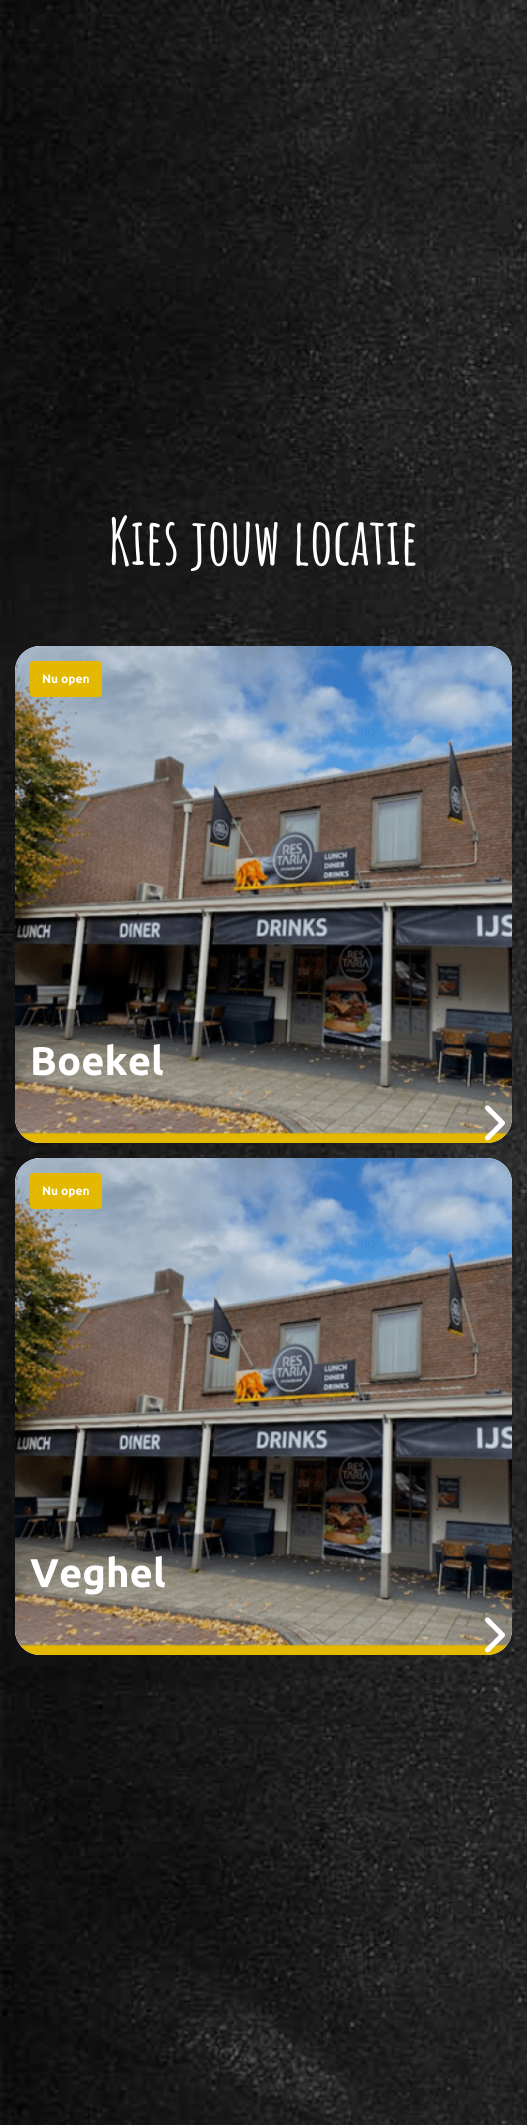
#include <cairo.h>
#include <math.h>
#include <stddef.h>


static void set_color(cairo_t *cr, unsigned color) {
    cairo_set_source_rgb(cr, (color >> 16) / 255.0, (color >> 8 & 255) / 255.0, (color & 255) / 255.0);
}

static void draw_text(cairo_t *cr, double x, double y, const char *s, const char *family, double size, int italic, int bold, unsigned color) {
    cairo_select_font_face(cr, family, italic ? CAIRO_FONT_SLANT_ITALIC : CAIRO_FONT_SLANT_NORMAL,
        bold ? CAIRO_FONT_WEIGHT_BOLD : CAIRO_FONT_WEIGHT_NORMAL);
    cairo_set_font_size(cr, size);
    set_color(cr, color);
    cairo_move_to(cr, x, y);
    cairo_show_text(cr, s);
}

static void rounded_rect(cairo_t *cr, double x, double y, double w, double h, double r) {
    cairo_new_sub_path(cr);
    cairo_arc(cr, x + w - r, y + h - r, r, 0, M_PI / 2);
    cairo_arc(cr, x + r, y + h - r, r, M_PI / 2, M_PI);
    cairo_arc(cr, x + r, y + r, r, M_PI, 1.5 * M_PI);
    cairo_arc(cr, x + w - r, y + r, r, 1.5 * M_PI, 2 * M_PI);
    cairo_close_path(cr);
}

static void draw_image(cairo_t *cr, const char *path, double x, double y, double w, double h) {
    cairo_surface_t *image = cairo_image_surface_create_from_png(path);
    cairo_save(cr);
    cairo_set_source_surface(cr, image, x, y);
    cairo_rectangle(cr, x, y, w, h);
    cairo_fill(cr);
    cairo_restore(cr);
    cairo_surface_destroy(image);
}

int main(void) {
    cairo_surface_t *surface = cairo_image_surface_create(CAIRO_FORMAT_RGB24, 527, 2125);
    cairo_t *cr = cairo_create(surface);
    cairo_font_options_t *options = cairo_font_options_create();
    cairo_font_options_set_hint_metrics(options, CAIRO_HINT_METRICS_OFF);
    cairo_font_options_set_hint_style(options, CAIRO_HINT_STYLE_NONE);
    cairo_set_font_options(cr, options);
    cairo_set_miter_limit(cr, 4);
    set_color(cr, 0xFFFFFF);
    cairo_paint(cr);
    draw_image(cr, "assets/img1.png", 0, 0, 527, 2125);
    draw_text(cr, 108, 565, "Kies jouw locatie", "Amatic SC", 64, 0, 1, 0xFFFFFF);
    rounded_rect(cr, 15, 646, 497, 497, 25);
    cairo_fill(cr);
    draw_image(cr, "assets/img2.png", 15, 646, 497, 497);
    set_color(cr, 0xFECC00);
    rounded_rect(cr, 30, 661, 72, 36, 3);
    cairo_fill(cr);
    cairo_set_source_rgba(cr, 0, 0, 0, 0.1);
    rounded_rect(cr, 15, 646, 497, 497, 25);
    cairo_fill(cr);
    draw_text(cr, 42, 683, "Nu open", "Ubuntu", 12, 0, 1, 0xFFFFFF);
    draw_text(cr, 30, 1075, "Boekel", "Ubuntu", 40, 0, 1, 0xFFFFFF);
    draw_image(cr, "assets/img3.png", 485, 1105, 20, 36);
    rounded_rect(cr, 15, 1158, 497, 497, 25);
    cairo_fill(cr);
    draw_image(cr, "assets/img4.png", 15, 1158, 497, 497);
    set_color(cr, 0xFECC00);
    rounded_rect(cr, 30, 1173, 72, 36, 3);
    cairo_fill(cr);
    cairo_set_source_rgba(cr, 0, 0, 0, 0.1);
    rounded_rect(cr, 15, 1158, 497, 497, 25);
    cairo_fill(cr);
    draw_text(cr, 42, 1195, "Nu open", "Ubuntu", 12, 0, 1, 0xFFFFFF);
    draw_text(cr, 30, 1587, "Veghel", "Ubuntu", 40, 0, 1, 0xFFFFFF);
    draw_image(cr, "assets/img5.png", 485, 1617, 20, 36);
    cairo_surface_write_to_png(surface, "output.png");
    cairo_font_options_destroy(options);
    cairo_destroy(cr);
    cairo_surface_destroy(surface);
    return 0;
}
